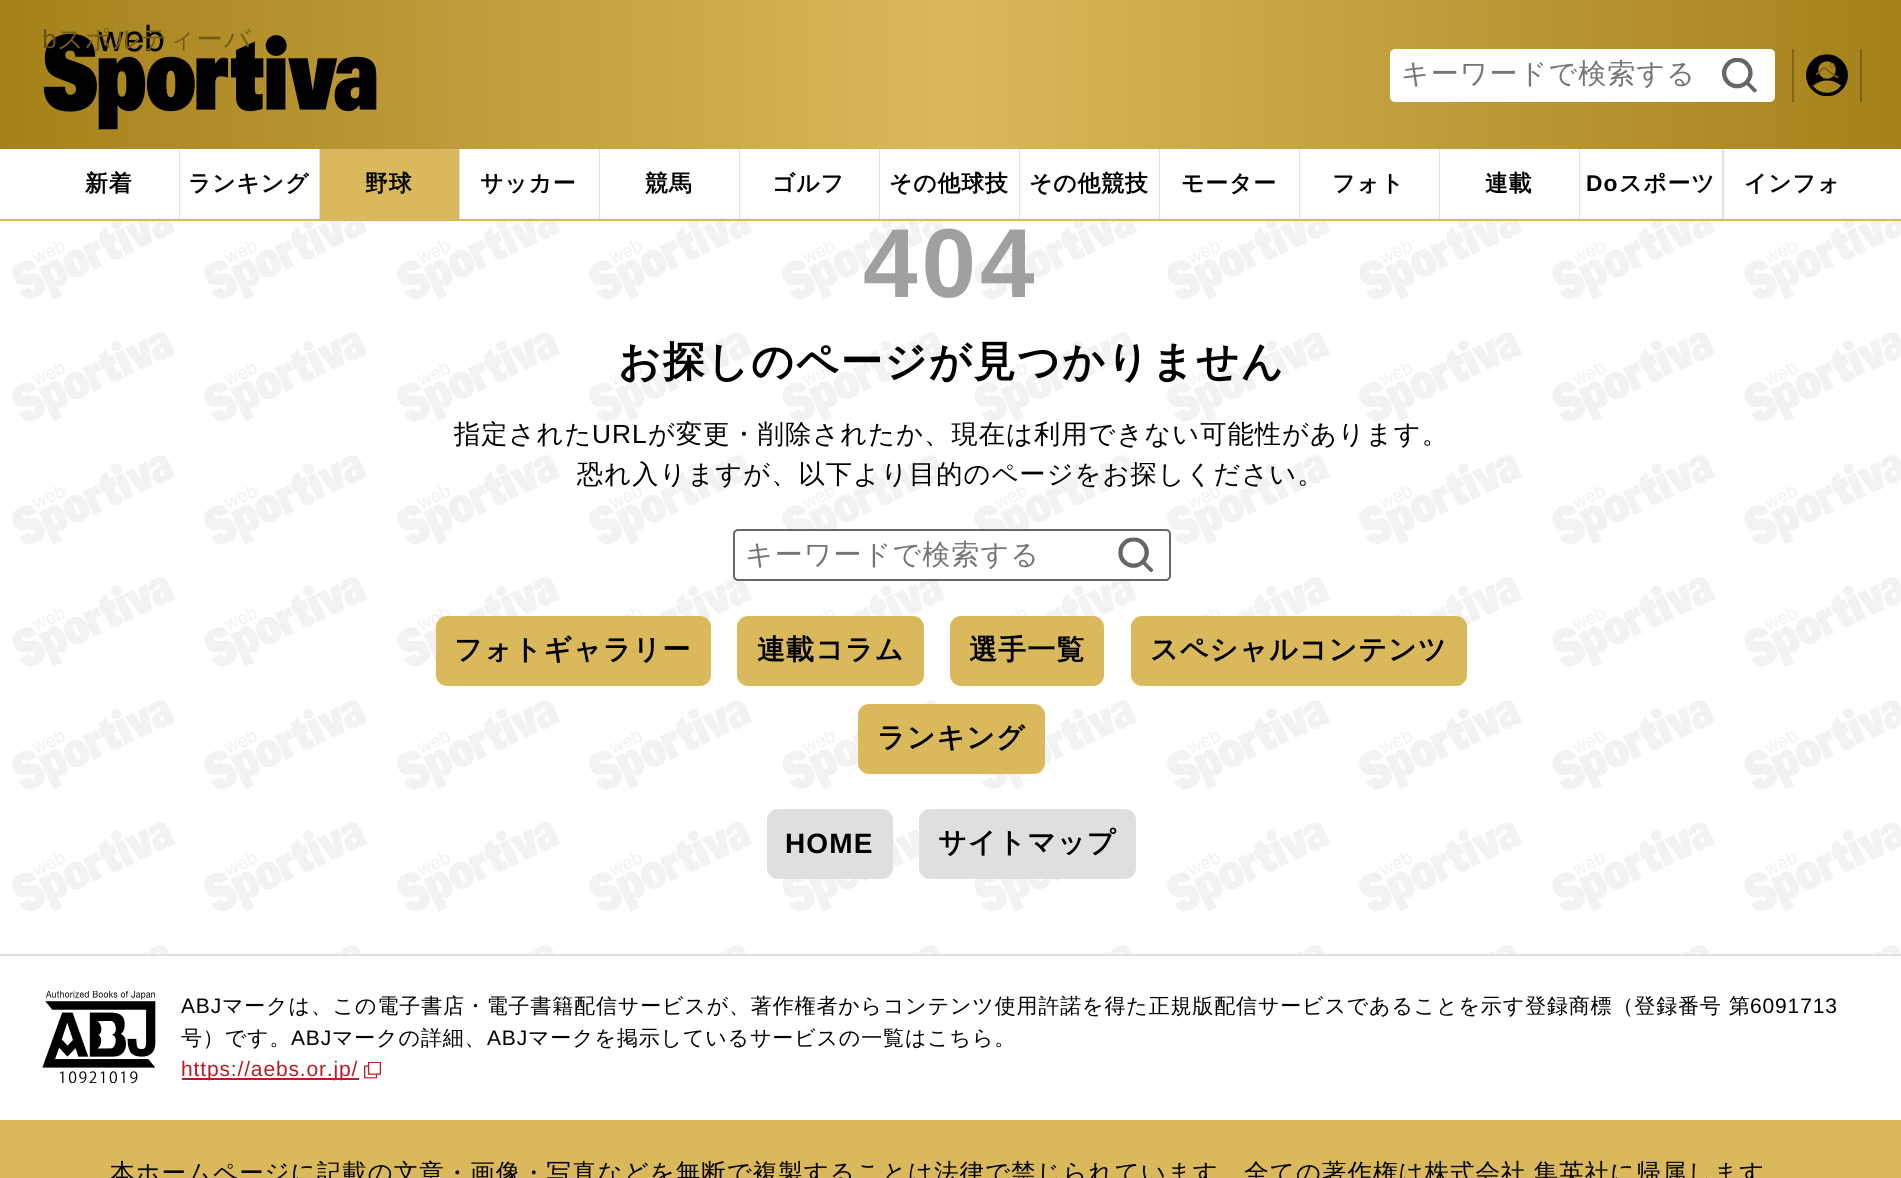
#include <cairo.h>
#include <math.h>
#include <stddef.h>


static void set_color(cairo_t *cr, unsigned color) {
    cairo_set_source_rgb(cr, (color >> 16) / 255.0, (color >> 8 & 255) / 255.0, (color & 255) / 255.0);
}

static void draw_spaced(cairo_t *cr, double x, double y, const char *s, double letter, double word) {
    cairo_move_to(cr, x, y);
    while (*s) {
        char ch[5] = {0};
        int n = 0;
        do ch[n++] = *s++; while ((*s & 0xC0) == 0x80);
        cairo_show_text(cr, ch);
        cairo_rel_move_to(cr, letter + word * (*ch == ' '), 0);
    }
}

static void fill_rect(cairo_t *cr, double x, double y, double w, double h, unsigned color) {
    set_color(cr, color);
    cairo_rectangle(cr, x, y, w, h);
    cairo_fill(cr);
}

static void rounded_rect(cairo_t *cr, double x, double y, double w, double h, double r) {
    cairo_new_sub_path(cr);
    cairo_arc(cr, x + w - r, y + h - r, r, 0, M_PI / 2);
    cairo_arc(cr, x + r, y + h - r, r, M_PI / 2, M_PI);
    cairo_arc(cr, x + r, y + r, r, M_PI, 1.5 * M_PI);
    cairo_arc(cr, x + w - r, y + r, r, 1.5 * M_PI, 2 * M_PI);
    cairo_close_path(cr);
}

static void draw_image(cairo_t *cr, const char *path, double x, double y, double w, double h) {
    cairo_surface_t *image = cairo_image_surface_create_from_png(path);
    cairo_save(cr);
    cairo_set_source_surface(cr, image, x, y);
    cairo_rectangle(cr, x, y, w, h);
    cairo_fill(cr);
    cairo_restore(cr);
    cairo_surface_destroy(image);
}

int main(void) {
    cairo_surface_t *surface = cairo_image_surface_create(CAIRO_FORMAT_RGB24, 1901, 1178);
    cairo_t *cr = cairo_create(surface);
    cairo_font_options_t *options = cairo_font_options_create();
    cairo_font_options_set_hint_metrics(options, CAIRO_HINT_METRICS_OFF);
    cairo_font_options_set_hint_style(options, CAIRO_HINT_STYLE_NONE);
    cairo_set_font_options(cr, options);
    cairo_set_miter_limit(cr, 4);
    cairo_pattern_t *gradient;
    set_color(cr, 0xFFFFFF);
    cairo_paint(cr);
    gradient = cairo_pattern_create_linear(0, 74, 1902, 74);
    cairo_pattern_add_color_stop_rgba(gradient, 0, 0.647, 0.506, 0.098, 1);
    cairo_pattern_add_color_stop_rgba(gradient, 0.5, 0.851, 0.725, 0.361, 1);
    cairo_pattern_add_color_stop_rgba(gradient, 1, 0.647, 0.506, 0.098, 1);
    cairo_set_source(cr, gradient);
    cairo_pattern_destroy(gradient);
    cairo_rectangle(cr, 0, 0, 1901, 149);
    cairo_fill(cr);
    draw_image(cr, "assets/img1.png", 43, 24, 334, 106);
    cairo_save(cr);
    cairo_rectangle(cr, 44, 25, 332, 105);
    cairo_clip(cr);
    cairo_select_font_face(cr, "Liberation Sans", CAIRO_FONT_SLANT_NORMAL, CAIRO_FONT_WEIGHT_NORMAL);
    cairo_set_font_size(cr, 26.25);
    set_color(cr, 0x655011);
    draw_spaced(cr, 42, 48, "b", 1.05, 0);
    cairo_restore(cr);
    cairo_select_font_face(cr, "WenQuanYi Zen Hei Medium", CAIRO_FONT_SLANT_NORMAL, CAIRO_FONT_WEIGHT_NORMAL);
    cairo_set_font_size(cr, 26.25);
    set_color(cr, 0x745D18);
    draw_spaced(cr, 57, 48, "スポルティーバ", 1.05, 0);
    set_color(cr, 0xFFFFFF);
    rounded_rect(cr, 1391, 50, 383, 51, 4);
    cairo_fill_preserve(cr);
    cairo_stroke(cr);
    cairo_set_font_size(cr, 28);
    set_color(cr, 0x757575);
    draw_spaced(cr, 1401, 83, "キーワードで検索する", 1.1, 0);
    draw_image(cr, "assets/img2.png", 1722, 58, 35, 35);
    fill_rect(cr, 1792, 49, 2, 53, 0x806519);
    draw_image(cr, "assets/img3.png", 1806, 54, 42, 42);
    cairo_set_font_size(cr, 24.5);
    set_color(cr, 0x745D18);
    draw_spaced(cr, 1815, 80, "ペ", 0.98, 0);
    fill_rect(cr, 1860, 49, 2, 53, 0x7D6215);
    cairo_select_font_face(cr, "WenQuanYi Zen Hei", CAIRO_FONT_SLANT_NORMAL, CAIRO_FONT_WEIGHT_BOLD);
    cairo_set_font_size(cr, 22.75);
    set_color(cr, 0x000000);
    draw_spaced(cr, 85, 191, "新着", 1, 0);
    fill_rect(cr, 179, 149, 1, 70, 0xDFDFDF);
    set_color(cr, 0x000000);
    draw_spaced(cr, 188, 191, "ランキング", 1, 0);
    fill_rect(cr, 319, 149, 1, 70, 0xDFDFDF);
    fill_rect(cr, 320, 149, 139, 70, 0xD9B95C);
    set_color(cr, 0x000000);
    draw_spaced(cr, 365, 191, "野球", 1, 0);
    fill_rect(cr, 459, 149, 1, 70, 0xDFDFDF);
    set_color(cr, 0x000000);
    draw_spaced(cr, 480, 191, "サッカー", 1, 0);
    fill_rect(cr, 599, 149, 1, 70, 0xDFDFDF);
    set_color(cr, 0x000000);
    draw_spaced(cr, 645, 191, "競馬", 1, 0);
    fill_rect(cr, 739, 149, 1, 70, 0xDFDFDF);
    set_color(cr, 0x000000);
    draw_spaced(cr, 772, 191, "ゴルフ", 1, 0);
    fill_rect(cr, 879, 149, 1, 70, 0xDFDFDF);
    set_color(cr, 0x000000);
    draw_spaced(cr, 889, 191, "その他球技", 1, 0);
    fill_rect(cr, 1019, 149, 1, 70, 0xDFDFDF);
    set_color(cr, 0x000000);
    draw_spaced(cr, 1029, 191, "その他競技", 1, 0);
    fill_rect(cr, 1159, 149, 1, 70, 0xDFDFDF);
    set_color(cr, 0x000000);
    draw_spaced(cr, 1181, 191, "モーター", 1, 0);
    fill_rect(cr, 1299, 149, 1, 70, 0xDFDFDF);
    set_color(cr, 0x000000);
    draw_spaced(cr, 1332, 191, "フォト", 1, 0);
    fill_rect(cr, 1439, 149, 1, 70, 0xDFDFDF);
    set_color(cr, 0x000000);
    draw_spaced(cr, 1485, 191, "連載", 1, 0);
    fill_rect(cr, 1579, 149, 1, 70, 0xDFDFDF);
    cairo_select_font_face(cr, "Liberation Sans", CAIRO_FONT_SLANT_NORMAL, CAIRO_FONT_WEIGHT_BOLD);
    set_color(cr, 0x000000);
    draw_spaced(cr, 1586, 191, "Do", 1, 0);
    cairo_select_font_face(cr, "WenQuanYi Zen Hei", CAIRO_FONT_SLANT_NORMAL, CAIRO_FONT_WEIGHT_BOLD);
    draw_spaced(cr, 1619, 191, "スポーツ", 1, 0);
    fill_rect(cr, 1722, 149, 2, 70, 0xDFDFDF);
    set_color(cr, 0x000000);
    draw_spaced(cr, 1744, 191, "インフォ", 1, 0);
    fill_rect(cr, 0, 219, 1901, 2, 0xD9B95C);
    draw_image(cr, "assets/img4.png", 12, 221, 1889, 733);
    cairo_select_font_face(cr, "Liberation Sans", CAIRO_FONT_SLANT_NORMAL, CAIRO_FONT_WEIGHT_BOLD);
    cairo_set_font_size(cr, 98);
    set_color(cr, 0x9FA0A0);
    draw_spaced(cr, 863, 297, "404", 4, 0);
    cairo_select_font_face(cr, "WenQuanYi Zen Hei", CAIRO_FONT_SLANT_NORMAL, CAIRO_FONT_WEIGHT_BOLD);
    cairo_set_font_size(cr, 42);
    set_color(cr, 0x000000);
    draw_spaced(cr, 618, 376, "お探しのページが見つかりません", 1.7, 0);
    cairo_select_font_face(cr, "WenQuanYi Zen Hei Medium", CAIRO_FONT_SLANT_NORMAL, CAIRO_FONT_WEIGHT_NORMAL);
    cairo_set_font_size(cr, 26.25);
    draw_spaced(cr, 454, 443, "指定された", 1.05, 0);
    cairo_select_font_face(cr, "Liberation Sans", CAIRO_FONT_SLANT_NORMAL, CAIRO_FONT_WEIGHT_NORMAL);
    draw_spaced(cr, 592, 443, "URL", 1.05, 0);
    cairo_select_font_face(cr, "WenQuanYi Zen Hei Medium", CAIRO_FONT_SLANT_NORMAL, CAIRO_FONT_WEIGHT_NORMAL);
    draw_spaced(cr, 648, 443, "が変更・削除されたか、現在は利用できない可能性があります。", 1.05, 0);
    draw_spaced(cr, 577, 483, "恐れ入りますが、以下より目的のページをお探しください。", 1.05, 0);
    set_color(cr, 0xFFFFFF);
    rounded_rect(cr, 734, 530, 436, 50, 4);
    cairo_fill_preserve(cr);
    set_color(cr, 0x666666);
    cairo_stroke(cr);
    cairo_set_font_size(cr, 28);
    set_color(cr, 0x757575);
    draw_spaced(cr, 745, 564, "キーワードで検索する", 1.1, 0);
    draw_image(cr, "assets/img5.png", 1118, 537, 35, 35);
    set_color(cr, 0xD9B95C);
    rounded_rect(cr, 437, 617, 273, 68, 10);
    cairo_fill_preserve(cr);
    cairo_stroke(cr);
    cairo_select_font_face(cr, "WenQuanYi Zen Hei", CAIRO_FONT_SLANT_NORMAL, CAIRO_FONT_WEIGHT_BOLD);
    set_color(cr, 0x000000);
    draw_spaced(cr, 454, 659, "フォトギャラリー", 1.1, 0);
    set_color(cr, 0xD9B95C);
    rounded_rect(cr, 738, 617, 185, 68, 10);
    cairo_fill_preserve(cr);
    cairo_stroke(cr);
    set_color(cr, 0x000000);
    draw_spaced(cr, 757, 659, "連載コラム", 1.1, 0);
    set_color(cr, 0xD9B95C);
    rounded_rect(cr, 951, 617, 152, 68, 10);
    cairo_fill_preserve(cr);
    cairo_stroke(cr);
    set_color(cr, 0x000000);
    draw_spaced(cr, 969, 659, "選手一覧", 1.1, 0);
    set_color(cr, 0xD9B95C);
    rounded_rect(cr, 1132, 617, 334, 68, 10);
    cairo_fill_preserve(cr);
    cairo_stroke(cr);
    set_color(cr, 0x000000);
    draw_spaced(cr, 1150, 659, "スペシャルコンテンツ", 1.1, 0);
    set_color(cr, 0xD9B95C);
    rounded_rect(cr, 859, 705, 185, 68, 10);
    cairo_fill_preserve(cr);
    cairo_stroke(cr);
    set_color(cr, 0x000000);
    draw_spaced(cr, 877, 747, "ランキング", 1.1, 0);
    set_color(cr, 0xDFDFDF);
    rounded_rect(cr, 768, 810, 124, 68, 10);
    cairo_fill_preserve(cr);
    cairo_stroke(cr);
    cairo_select_font_face(cr, "Liberation Sans", CAIRO_FONT_SLANT_NORMAL, CAIRO_FONT_WEIGHT_BOLD);
    set_color(cr, 0x000000);
    draw_spaced(cr, 785, 853, "HOME", 1.1, 0);
    set_color(cr, 0xDFDFDF);
    rounded_rect(cr, 920, 810, 215, 68, 10);
    cairo_fill_preserve(cr);
    cairo_stroke(cr);
    cairo_select_font_face(cr, "WenQuanYi Zen Hei", CAIRO_FONT_SLANT_NORMAL, CAIRO_FONT_WEIGHT_BOLD);
    set_color(cr, 0x000000);
    draw_spaced(cr, 938, 852, "サイトマップ", 1.1, 0);
    fill_rect(cr, 0, 954, 1901, 2, 0xDFDFDF);
    draw_image(cr, "assets/img6.png", 42, 991, 114, 92);
    cairo_select_font_face(cr, "Liberation Sans", CAIRO_FONT_SLANT_NORMAL, CAIRO_FONT_WEIGHT_NORMAL);
    cairo_set_font_size(cr, 21);
    set_color(cr, 0x000000);
    draw_spaced(cr, 181, 1013, "ABJ", 0.85, 0);
    cairo_select_font_face(cr, "WenQuanYi Zen Hei Medium", CAIRO_FONT_SLANT_NORMAL, CAIRO_FONT_WEIGHT_NORMAL);
    draw_spaced(cr, 222, 1013, "マークは、この電子書店・電子書籍配信サービスが、著作権者からコンテンツ使用許諾を得た正規版配信サービスであることを示す登録商標（登録番号 第", 0.85, 0);
    cairo_select_font_face(cr, "Liberation Sans", CAIRO_FONT_SLANT_NORMAL, CAIRO_FONT_WEIGHT_NORMAL);
    draw_spaced(cr, 1750, 1013, "6091713", 0.85, 0);
    cairo_select_font_face(cr, "WenQuanYi Zen Hei Medium", CAIRO_FONT_SLANT_NORMAL, CAIRO_FONT_WEIGHT_NORMAL);
    draw_spaced(cr, 181, 1045, "号）です。", 0.85, 0);
    cairo_select_font_face(cr, "Liberation Sans", CAIRO_FONT_SLANT_NORMAL, CAIRO_FONT_WEIGHT_NORMAL);
    draw_spaced(cr, 291, 1045, "ABJ", 0.85, 0);
    cairo_select_font_face(cr, "WenQuanYi Zen Hei Medium", CAIRO_FONT_SLANT_NORMAL, CAIRO_FONT_WEIGHT_NORMAL);
    draw_spaced(cr, 332, 1045, "マークの詳細、", 0.85, 0);
    cairo_select_font_face(cr, "Liberation Sans", CAIRO_FONT_SLANT_NORMAL, CAIRO_FONT_WEIGHT_NORMAL);
    draw_spaced(cr, 487, 1045, "ABJ", 0.85, 0);
    cairo_select_font_face(cr, "WenQuanYi Zen Hei Medium", CAIRO_FONT_SLANT_NORMAL, CAIRO_FONT_WEIGHT_NORMAL);
    draw_spaced(cr, 528, 1045, "マークを掲示しているサービスの一覧はこちら。", 0.85, 0);
    fill_rect(cr, 182, 1078, 177, 2, 0xBB1B21);
    cairo_select_font_face(cr, "Liberation Sans", CAIRO_FONT_SLANT_NORMAL, CAIRO_FONT_WEIGHT_NORMAL);
    draw_spaced(cr, 181, 1076, "https://aebs.or.jp/", 0.85, 0);
    draw_image(cr, "assets/img7.png", 364, 1062, 17, 17);
    fill_rect(cr, 0, 1120, 1901, 58, 0xD9B95C);
    cairo_select_font_face(cr, "WenQuanYi Zen Hei Medium", CAIRO_FONT_SLANT_NORMAL, CAIRO_FONT_WEIGHT_NORMAL);
    cairo_set_font_size(cr, 24.5);
    set_color(cr, 0x000000);
    draw_spaced(cr, 110, 1181, "本ホームページに記載の文章・画像・写真などを無断で複製することは法律で禁じられています。全ての著作権は株式会社 集英社に帰属します", 0.98, -1);
    cairo_surface_write_to_png(surface, "output.png");
    cairo_font_options_destroy(options);
    cairo_destroy(cr);
    cairo_surface_destroy(surface);
    return 0;
}
